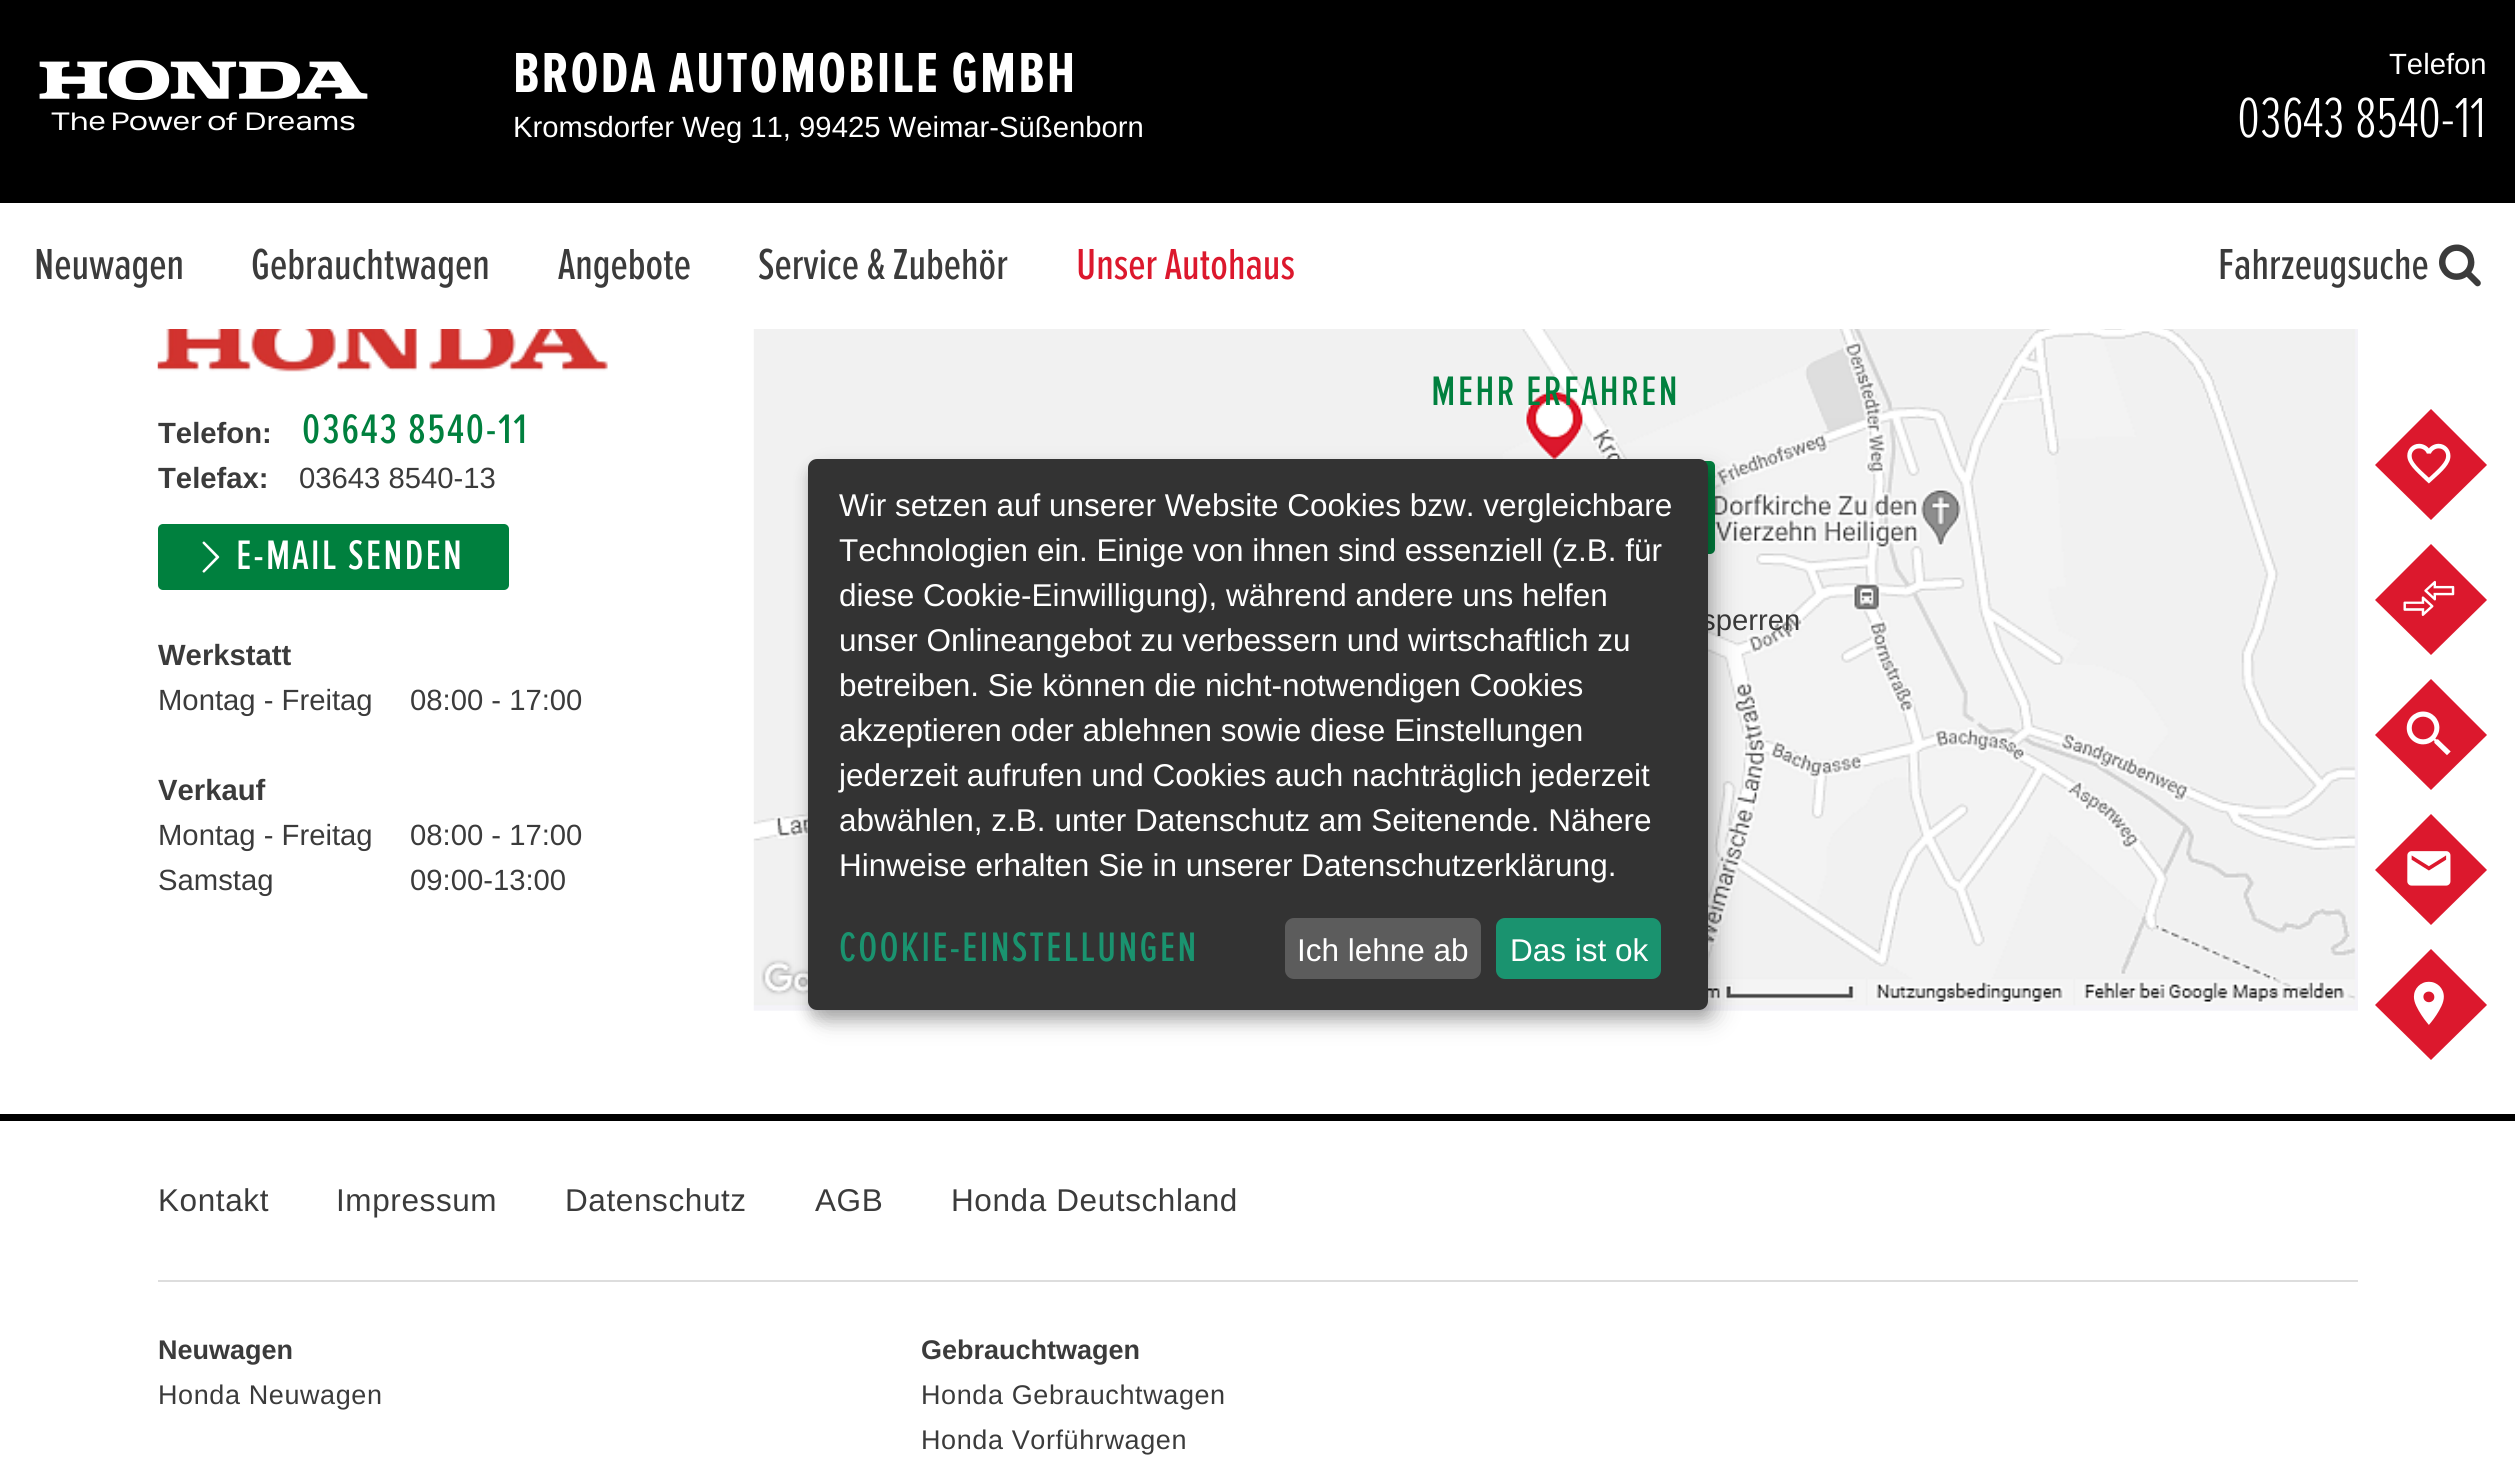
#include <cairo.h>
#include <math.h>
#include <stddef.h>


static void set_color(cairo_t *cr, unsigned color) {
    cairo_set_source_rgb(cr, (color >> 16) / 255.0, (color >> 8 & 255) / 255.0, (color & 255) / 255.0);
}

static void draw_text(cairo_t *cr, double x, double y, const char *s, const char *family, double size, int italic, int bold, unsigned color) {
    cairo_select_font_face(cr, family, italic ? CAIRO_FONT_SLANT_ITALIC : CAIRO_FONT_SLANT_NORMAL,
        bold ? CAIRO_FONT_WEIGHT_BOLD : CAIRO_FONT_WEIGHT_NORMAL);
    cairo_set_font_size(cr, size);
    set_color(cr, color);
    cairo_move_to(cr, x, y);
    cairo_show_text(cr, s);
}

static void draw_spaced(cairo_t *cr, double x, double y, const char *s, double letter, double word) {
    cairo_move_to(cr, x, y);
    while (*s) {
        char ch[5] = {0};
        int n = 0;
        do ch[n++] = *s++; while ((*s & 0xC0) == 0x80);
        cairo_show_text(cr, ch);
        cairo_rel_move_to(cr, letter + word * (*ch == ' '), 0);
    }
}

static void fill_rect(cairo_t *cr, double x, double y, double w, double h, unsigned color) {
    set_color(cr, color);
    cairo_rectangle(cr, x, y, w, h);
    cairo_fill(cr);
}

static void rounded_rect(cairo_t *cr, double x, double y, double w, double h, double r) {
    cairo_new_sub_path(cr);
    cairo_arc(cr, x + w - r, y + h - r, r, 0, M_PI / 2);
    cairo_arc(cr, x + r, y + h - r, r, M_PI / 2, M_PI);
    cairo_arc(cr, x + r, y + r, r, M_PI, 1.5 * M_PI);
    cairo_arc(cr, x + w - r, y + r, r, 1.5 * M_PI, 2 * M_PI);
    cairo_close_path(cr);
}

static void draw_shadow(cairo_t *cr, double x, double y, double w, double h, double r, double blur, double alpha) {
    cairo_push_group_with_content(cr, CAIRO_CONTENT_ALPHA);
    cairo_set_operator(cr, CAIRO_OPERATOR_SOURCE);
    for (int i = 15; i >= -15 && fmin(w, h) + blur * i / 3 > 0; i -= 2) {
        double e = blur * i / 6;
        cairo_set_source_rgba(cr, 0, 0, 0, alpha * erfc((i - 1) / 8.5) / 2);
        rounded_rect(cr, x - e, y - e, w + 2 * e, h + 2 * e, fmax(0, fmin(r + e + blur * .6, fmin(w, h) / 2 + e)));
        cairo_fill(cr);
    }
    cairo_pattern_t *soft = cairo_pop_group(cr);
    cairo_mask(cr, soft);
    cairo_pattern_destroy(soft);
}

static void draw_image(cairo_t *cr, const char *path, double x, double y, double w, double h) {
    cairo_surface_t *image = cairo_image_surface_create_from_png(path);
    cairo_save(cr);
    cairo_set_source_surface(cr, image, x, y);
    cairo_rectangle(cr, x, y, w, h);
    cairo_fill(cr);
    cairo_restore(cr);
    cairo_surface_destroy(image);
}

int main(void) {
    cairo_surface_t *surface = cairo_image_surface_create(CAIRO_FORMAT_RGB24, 2515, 1471);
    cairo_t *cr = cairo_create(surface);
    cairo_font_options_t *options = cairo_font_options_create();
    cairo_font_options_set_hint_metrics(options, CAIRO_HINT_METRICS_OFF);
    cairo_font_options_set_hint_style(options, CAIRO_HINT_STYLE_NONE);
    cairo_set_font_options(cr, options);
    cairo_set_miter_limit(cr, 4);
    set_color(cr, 0xFFFFFF);
    cairo_paint(cr);
    fill_rect(cr, 0, 0, 2515, 203, 0x000000);
    draw_image(cr, "assets/img1.png", 39, 60, 329, 71);
    cairo_select_font_face(cr, "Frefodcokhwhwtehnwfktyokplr", CAIRO_FONT_SLANT_NORMAL, CAIRO_FONT_WEIGHT_BOLD);
    cairo_set_font_size(cr, 58.5);
    set_color(cr, 0xFFFFFF);
    draw_spaced(cr, 513, 92, "BRODA AUTOMOBILE GMBH", 2.1, 0);
    draw_text(cr, 513, 137, "Kromsdorfer Weg 11, 99425 Weimar-Süßenborn", "Liberation Sans", 29.25, 0, 0, 0xFFFFFF);
    draw_text(cr, 2389, 74, "Telefon", "Liberation Sans", 29.25, 0, 0, 0xFFFFFF);
    draw_text(cr, 2237, 137, "03643 8540-11", "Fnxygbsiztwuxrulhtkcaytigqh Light", 58.5, 0, 0, 0xFFFFFF);
    draw_text(cr, 34, 279, "Neuwagen", "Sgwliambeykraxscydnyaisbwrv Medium", 45, 0, 0, 0x3B3B3B);
    draw_text(cr, 251, 279, "Gebrauchtwagen", "Sgwliambeykraxscydnyaisbwrv Medium", 45, 0, 0, 0x3B3B3B);
    draw_text(cr, 558, 279, "Angebote", "Sgwliambeykraxscydnyaisbwrv Medium", 45, 0, 0, 0x3B3B3B);
    draw_text(cr, 758, 279, "Service & Zubehör", "Sgwliambeykraxscydnyaisbwrv Medium", 45, 0, 0, 0x3B3B3B);
    draw_text(cr, 1076, 279, "Unser Autohaus", "Sgwliambeykraxscydnyaisbwrv Medium", 45, 0, 0, 0xDC182D);
    draw_text(cr, 2218, 279, "Fahrzeugsuche", "Sgwliambeykraxscydnyaisbwrv Medium", 45, 0, 0, 0x3B3B3B);
    draw_image(cr, "assets/img2.png", 2439, 244, 42, 43);
    draw_image(cr, "assets/img3.png", 157, 329, 451, 43);
    cairo_save(cr);
    cairo_rectangle(cr, 158, 47, 506, 858);
    cairo_clip(cr);
    draw_text(cr, 158, 443, "Telefon:", "Liberation Sans", 29.25, 0, 1, 0x3B3B3B);
    cairo_restore(cr);
    cairo_set_font_size(cr, 42.75);
    set_color(cr, 0x00803E);
    draw_spaced(cr, 302, 443, "03643 8540-11", 2.1, 0);
    cairo_save(cr);
    cairo_rectangle(cr, 158, 47, 506, 858);
    cairo_clip(cr);
    draw_text(cr, 158, 488, "Telefax:", "Liberation Sans", 29.25, 0, 1, 0x3B3B3B);
    cairo_restore(cr);
    draw_text(cr, 299, 488, "03643 8540-13", "Liberation Sans", 29.25, 0, 0, 0x3B3B3B);
    set_color(cr, 0x00803E);
    rounded_rect(cr, 158, 524, 351, 66, 5);
    cairo_fill(cr);
    draw_image(cr, "assets/img4.png", 202, 541, 18, 32);
    cairo_select_font_face(cr, "Sgwliambeykraxscydnyaisbwrv Medium", CAIRO_FONT_SLANT_NORMAL, CAIRO_FONT_WEIGHT_NORMAL);
    cairo_set_font_size(cr, 42.75);
    set_color(cr, 0xFFFFFF);
    draw_spaced(cr, 236, 569, "E-MAIL SENDEN", 2.1, 0);
    cairo_save(cr);
    cairo_rectangle(cr, 158, 47, 506, 858);
    cairo_clip(cr);
    draw_text(cr, 158, 665, "Werkstatt", "Liberation Sans", 29.25, 0, 1, 0x3B3B3B);
    cairo_restore(cr);
    draw_text(cr, 158, 710, "Montag - Freitag", "Liberation Sans", 29.25, 0, 0, 0x3B3B3B);
    draw_text(cr, 410, 710, "08:00 - 17:00", "Liberation Sans", 29.25, 0, 0, 0x3B3B3B);
    draw_text(cr, 158, 800, "Verkauf", "Liberation Sans", 29.25, 0, 1, 0x3B3B3B);
    draw_text(cr, 158, 845, "Montag - Freitag", "Liberation Sans", 29.25, 0, 0, 0x3B3B3B);
    draw_text(cr, 410, 845, "08:00 - 17:00", "Liberation Sans", 29.25, 0, 0, 0x3B3B3B);
    draw_text(cr, 158, 890, "Samstag", "Liberation Sans", 29.25, 0, 0, 0x3B3B3B);
    draw_text(cr, 410, 890, "09:00-13:00", "Liberation Sans", 29.25, 0, 0, 0x3B3B3B);
    draw_image(cr, "assets/img5.png", 753, 329, 1605, 682);
    cairo_select_font_face(cr, "Sgwliambeykraxscydnyaisbwrv Medium", CAIRO_FONT_SLANT_NORMAL, CAIRO_FONT_WEIGHT_NORMAL);
    cairo_set_font_size(cr, 42.75);
    set_color(cr, 0x00803E);
    draw_spaced(cr, 1431, 405, "MEHR ERFAHREN", 2.1, 0);
    rounded_rect(cr, 1395, 461, 320, 93, 5);
    cairo_fill(cr);
    draw_text(cr, 1701, 630, "sperren", "Liberation Sans", 29.25, 0, 0, 0x3B3B3B);
    set_color(cr, 0xDC182D);
    cairo_new_path(cr);
    cairo_move_to(cr, 2431, 409);
    cairo_line_to(cr, 2487, 465);
    cairo_line_to(cr, 2431, 520);
    cairo_line_to(cr, 2375, 465);
    cairo_close_path(cr);
    cairo_fill(cr);
    draw_image(cr, "assets/img6.png", 2407, 443, 44, 41);
    cairo_new_path(cr);
    cairo_move_to(cr, 2431, 544);
    cairo_line_to(cr, 2487, 600);
    cairo_line_to(cr, 2431, 655);
    cairo_line_to(cr, 2375, 600);
    cairo_close_path(cr);
    cairo_fill(cr);
    draw_image(cr, "assets/img7.png", 2403, 580, 52, 36);
    cairo_new_path(cr);
    cairo_move_to(cr, 2431, 679);
    cairo_line_to(cr, 2487, 735);
    cairo_line_to(cr, 2431, 790);
    cairo_line_to(cr, 2375, 735);
    cairo_close_path(cr);
    cairo_fill(cr);
    draw_image(cr, "assets/img8.png", 2406, 711, 45, 45);
    cairo_new_path(cr);
    cairo_move_to(cr, 2431, 814);
    cairo_line_to(cr, 2487, 870);
    cairo_line_to(cr, 2431, 925);
    cairo_line_to(cr, 2375, 870);
    cairo_close_path(cr);
    cairo_fill(cr);
    draw_image(cr, "assets/img9.png", 2407, 851, 44, 35);
    cairo_new_path(cr);
    cairo_move_to(cr, 2431, 949);
    cairo_line_to(cr, 2487, 1005);
    cairo_line_to(cr, 2431, 1060);
    cairo_line_to(cr, 2375, 1005);
    cairo_close_path(cr);
    cairo_fill(cr);
    draw_image(cr, "assets/img10.png", 2413, 981, 31, 44);
    set_color(cr, 0x000000);
    draw_shadow(cr, 819, 470, 900, 552, 9, 11, 0.19);
    draw_shadow(cr, 808, 468, 900, 551, 9, 7, 0.2);
    set_color(cr, 0x333333);
    rounded_rect(cr, 808, 459, 900, 551, 9);
    cairo_fill(cr);
    draw_text(cr, 839, 516, "Wir setzen auf unserer Website Cookies bzw. vergleichbare", "Liberation Sans", 31.5, 0, 0, 0xFFFFFF);
    draw_text(cr, 839, 561, "Technologien ein. Einige von ihnen sind essenziell (z.B. für", "Liberation Sans", 31.5, 0, 0, 0xFFFFFF);
    draw_text(cr, 839, 606, "diese Cookie-Einwilligung), während andere uns helfen", "Liberation Sans", 31.5, 0, 0, 0xFFFFFF);
    draw_text(cr, 839, 651, "unser Onlineangebot zu verbessern und wirtschaftlich zu", "Liberation Sans", 31.5, 0, 0, 0xFFFFFF);
    draw_text(cr, 839, 696, "betreiben. Sie können die nicht-notwendigen Cookies", "Liberation Sans", 31.5, 0, 0, 0xFFFFFF);
    draw_text(cr, 839, 741, "akzeptieren oder ablehnen sowie diese Einstellungen", "Liberation Sans", 31.5, 0, 0, 0xFFFFFF);
    draw_text(cr, 839, 786, "jederzeit aufrufen und Cookies auch nachträglich jederzeit", "Liberation Sans", 31.5, 0, 0, 0xFFFFFF);
    draw_text(cr, 839, 831, "abwählen, z.B. unter Datenschutz am Seitenende. Nähere", "Liberation Sans", 31.5, 0, 0, 0xFFFFFF);
    draw_text(cr, 839, 876, "Hinweise erhalten Sie in unserer Datenschutzerklärung.", "Liberation Sans", 31.5, 0, 0, 0xFFFFFF);
    cairo_select_font_face(cr, "Sgwliambeykraxscydnyaisbwrv Medium", CAIRO_FONT_SLANT_NORMAL, CAIRO_FONT_WEIGHT_NORMAL);
    cairo_set_font_size(cr, 42.75);
    set_color(cr, 0x1A936F);
    draw_spaced(cr, 839, 961, "COOKIE-EINSTELLUNGEN", 2.1, 0);
    set_color(cr, 0x5C5C5C);
    rounded_rect(cr, 1285, 918, 196, 61, 9);
    cairo_fill(cr);
    draw_text(cr, 1297, 961, "Ich lehne ab", "Liberation Sans", 31.5, 0, 0, 0xFFFFFF);
    set_color(cr, 0x1A936F);
    rounded_rect(cr, 1496, 918, 165, 61, 9);
    cairo_fill(cr);
    draw_text(cr, 1510, 961, "Das ist ok", "Liberation Sans", 31.5, 0, 0, 0xFFFFFF);
    fill_rect(cr, 0, 1114, 2515, 7, 0x000000);
    set_color(cr, 0x3B3B3B);
    draw_spaced(cr, 158, 1211, "Kontakt", 0.6, 0);
    draw_spaced(cr, 336, 1211, "Impressum", 0.6, 0);
    draw_spaced(cr, 565, 1211, "Datenschutz", 0.6, 0);
    draw_spaced(cr, 815, 1211, "AGB", 0.6, 0);
    draw_spaced(cr, 951, 1211, "Honda Deutschland", 0.6, 0);
    fill_rect(cr, 158, 1280, 2200, 2, 0xDDDDDD);
    draw_text(cr, 158, 1359, "Neuwagen", "Liberation Sans", 27, 0, 1, 0x3B3B3B);
    cairo_select_font_face(cr, "Liberation Sans", CAIRO_FONT_SLANT_NORMAL, CAIRO_FONT_WEIGHT_NORMAL);
    draw_spaced(cr, 158, 1404, "Honda Neuwagen", 0.6, 0);
    draw_text(cr, 921, 1359, "Gebrauchtwagen", "Liberation Sans", 27, 0, 1, 0x3B3B3B);
    cairo_select_font_face(cr, "Liberation Sans", CAIRO_FONT_SLANT_NORMAL, CAIRO_FONT_WEIGHT_NORMAL);
    draw_spaced(cr, 921, 1404, "Honda Gebrauchtwagen", 0.6, 0);
    draw_spaced(cr, 921, 1449, "Honda Vorführwagen", 0.6, 0);
    cairo_surface_write_to_png(surface, "output.png");
    cairo_font_options_destroy(options);
    cairo_destroy(cr);
    cairo_surface_destroy(surface);
    return 0;
}
